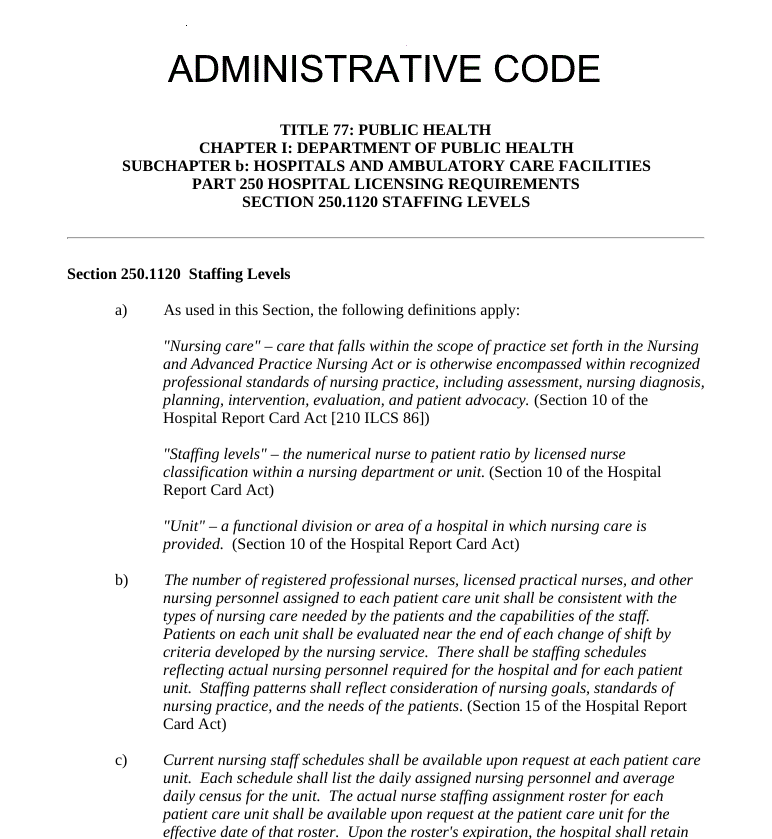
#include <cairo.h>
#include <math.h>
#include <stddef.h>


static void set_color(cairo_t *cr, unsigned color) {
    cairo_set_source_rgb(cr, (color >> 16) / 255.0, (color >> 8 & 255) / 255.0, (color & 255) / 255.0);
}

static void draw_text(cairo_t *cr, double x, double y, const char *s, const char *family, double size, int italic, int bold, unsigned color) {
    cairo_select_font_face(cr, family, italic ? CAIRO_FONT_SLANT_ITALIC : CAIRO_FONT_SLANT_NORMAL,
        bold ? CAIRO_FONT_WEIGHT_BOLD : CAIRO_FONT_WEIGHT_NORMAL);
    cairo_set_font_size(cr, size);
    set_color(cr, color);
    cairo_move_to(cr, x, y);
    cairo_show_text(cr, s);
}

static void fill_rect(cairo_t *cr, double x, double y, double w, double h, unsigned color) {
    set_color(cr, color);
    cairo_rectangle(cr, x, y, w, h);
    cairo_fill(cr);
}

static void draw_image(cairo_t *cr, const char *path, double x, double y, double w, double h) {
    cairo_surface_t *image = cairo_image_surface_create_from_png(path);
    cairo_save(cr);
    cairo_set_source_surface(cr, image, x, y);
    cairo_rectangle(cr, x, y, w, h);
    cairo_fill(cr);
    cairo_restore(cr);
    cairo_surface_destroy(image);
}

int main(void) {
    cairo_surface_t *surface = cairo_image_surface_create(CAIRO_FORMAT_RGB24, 772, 839);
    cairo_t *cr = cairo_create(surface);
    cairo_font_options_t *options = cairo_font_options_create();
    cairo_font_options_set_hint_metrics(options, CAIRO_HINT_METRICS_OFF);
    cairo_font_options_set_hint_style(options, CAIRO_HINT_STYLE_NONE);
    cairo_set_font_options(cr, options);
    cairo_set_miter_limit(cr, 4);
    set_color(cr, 0xFFFFFF);
    cairo_paint(cr);
    draw_image(cr, "assets/img1.png", 168, 25, 432, 58);
    draw_text(cr, 280, 135, "TITLE 77: PUBLIC HEALTH", "Liberation Serif", 16, 0, 1, 0x000000);
    draw_text(cr, 199, 153, "CHAPTER I: DEPARTMENT OF PUBLIC HEALTH", "Liberation Serif", 16, 0, 1, 0x000000);
    draw_text(cr, 122, 171, "SUBCHAPTER b: HOSPITALS AND AMBULATORY CARE FACILITIES", "Liberation Serif", 16, 0, 1, 0x000000);
    draw_text(cr, 192, 189, "PART 250 HOSPITAL LICENSING REQUIREMENTS", "Liberation Serif", 16, 0, 1, 0x000000);
    draw_text(cr, 242, 207, "SECTION 250.1120 STAFFING LEVELS", "Liberation Serif", 16, 0, 1, 0x000000);
    fill_rect(cr, 67, 237, 638, 1, 0x9F9F9F);
    fill_rect(cr, 704, 237, 1, 2, 0xEEEEEE);
    fill_rect(cr, 67, 238, 638, 1, 0xEEEEEE);
    fill_rect(cr, 67, 237, 1, 2, 0x9F9F9F);
    draw_text(cr, 67, 279, "Section 250.1120  Staffing Levels", "Liberation Serif", 16, 0, 1, 0x000000);
    draw_text(cr, 115, 315, "a)         As used in this Section, the following definitions apply:", "Liberation Serif", 16, 0, 0, 0x000000);
    draw_text(cr, 163, 351, "\"Nursing care\" – care that falls within the scope of practice set forth in the Nursing", "Liberation Serif", 16, 1, 0, 0x000000);
    draw_text(cr, 163, 369, "and Advanced Practice Nursing Act or is otherwise encompassed within recognized", "Liberation Serif", 16, 1, 0, 0x000000);
    draw_text(cr, 163, 387, "professional standards of nursing practice, including assessment, nursing diagnosis,", "Liberation Serif", 16, 1, 0, 0x000000);
    draw_text(cr, 163, 405, "planning, intervention, evaluation, and patient advocacy.", "Liberation Serif", 16, 1, 0, 0x000000);
    draw_text(cr, 534, 405, "(Section 10 of the", "Liberation Serif", 16, 0, 0, 0x000000);
    draw_text(cr, 163, 423, "Hospital Report Card Act [210 ILCS 86])", "Liberation Serif", 16, 0, 0, 0x000000);
    draw_text(cr, 163, 459, "\"Staffing levels\" – the numerical nurse to patient ratio by licensed nurse", "Liberation Serif", 16, 1, 0, 0x000000);
    draw_text(cr, 163, 477, "classification within a nursing department or unit.", "Liberation Serif", 16, 1, 0, 0x000000);
    draw_text(cr, 489, 477, "(Section 10 of the Hospital", "Liberation Serif", 16, 0, 0, 0x000000);
    draw_text(cr, 163, 495, "Report Card Act)", "Liberation Serif", 16, 0, 0, 0x000000);
    draw_text(cr, 163, 531, "\"Unit\" – a functional division or area of a hospital in which nursing care is", "Liberation Serif", 16, 1, 0, 0x000000);
    draw_text(cr, 163, 549, "provided.", "Liberation Serif", 16, 1, 0, 0x000000);
    draw_text(cr, 232, 549, "(Section 10 of the Hospital Report Card Act)", "Liberation Serif", 16, 0, 0, 0x000000);
    draw_text(cr, 115, 585, "b)", "Liberation Serif", 16, 0, 0, 0x000000);
    draw_text(cr, 164, 585, "The number of registered professional nurses, licensed practical nurses, and other", "Liberation Serif", 16, 1, 0, 0x000000);
    draw_text(cr, 163, 603, "nursing personnel assigned to each patient care unit shall be consistent with the", "Liberation Serif", 16, 1, 0, 0x000000);
    draw_text(cr, 163, 621, "types of nursing care needed by the patients and the capabilities of the staff.", "Liberation Serif", 16, 1, 0, 0x000000);
    draw_text(cr, 163, 639, "Patients on each unit shall be evaluated near the end of each change of shift by", "Liberation Serif", 16, 1, 0, 0x000000);
    draw_text(cr, 163, 657, "criteria developed by the nursing service.  There shall be staffing schedules", "Liberation Serif", 16, 1, 0, 0x000000);
    draw_text(cr, 163, 675, "reflecting actual nursing personnel required for the hospital and for each patient", "Liberation Serif", 16, 1, 0, 0x000000);
    draw_text(cr, 163, 693, "unit.  Staffing patterns shall reflect consideration of nursing goals, standards of", "Liberation Serif", 16, 1, 0, 0x000000);
    draw_text(cr, 163, 711, "nursing practice, and the needs of the patients", "Liberation Serif", 16, 1, 0, 0x000000);
    draw_text(cr, 459, 711, ". (Section 15 of the Hospital Report", "Liberation Serif", 16, 0, 0, 0x000000);
    draw_text(cr, 163, 729, "Card Act)", "Liberation Serif", 16, 0, 0, 0x000000);
    draw_text(cr, 115, 765, "c)", "Liberation Serif", 16, 0, 0, 0x000000);
    draw_text(cr, 163, 765, "Current nursing staff schedules shall be available upon request at each patient care", "Liberation Serif", 16, 1, 0, 0x000000);
    draw_text(cr, 163, 783, "unit.  Each schedule shall list the daily assigned nursing personnel and average", "Liberation Serif", 16, 1, 0, 0x000000);
    draw_text(cr, 163, 801, "daily census for the unit.  The actual nurse staffing assignment roster for each", "Liberation Serif", 16, 1, 0, 0x000000);
    draw_text(cr, 163, 819, "patient care unit shall be available upon request at the patient care unit for the", "Liberation Serif", 16, 1, 0, 0x000000);
    draw_text(cr, 163, 837, "effective date of that roster.  Upon the roster's expiration, the hospital shall retain", "Liberation Serif", 16, 1, 0, 0x000000);
    cairo_surface_write_to_png(surface, "output.png");
    cairo_font_options_destroy(options);
    cairo_destroy(cr);
    cairo_surface_destroy(surface);
    return 0;
}
